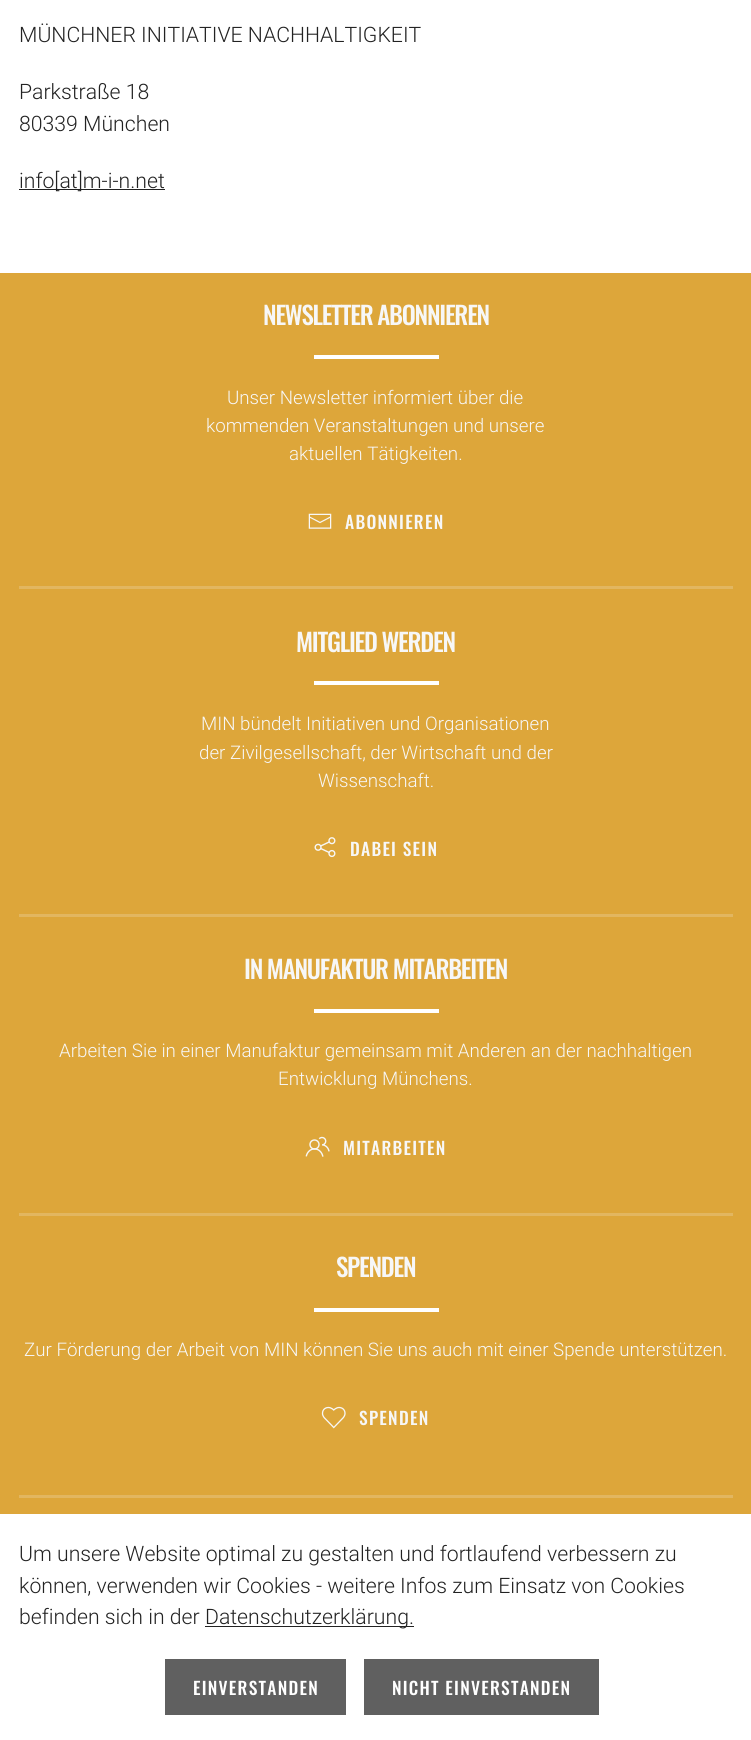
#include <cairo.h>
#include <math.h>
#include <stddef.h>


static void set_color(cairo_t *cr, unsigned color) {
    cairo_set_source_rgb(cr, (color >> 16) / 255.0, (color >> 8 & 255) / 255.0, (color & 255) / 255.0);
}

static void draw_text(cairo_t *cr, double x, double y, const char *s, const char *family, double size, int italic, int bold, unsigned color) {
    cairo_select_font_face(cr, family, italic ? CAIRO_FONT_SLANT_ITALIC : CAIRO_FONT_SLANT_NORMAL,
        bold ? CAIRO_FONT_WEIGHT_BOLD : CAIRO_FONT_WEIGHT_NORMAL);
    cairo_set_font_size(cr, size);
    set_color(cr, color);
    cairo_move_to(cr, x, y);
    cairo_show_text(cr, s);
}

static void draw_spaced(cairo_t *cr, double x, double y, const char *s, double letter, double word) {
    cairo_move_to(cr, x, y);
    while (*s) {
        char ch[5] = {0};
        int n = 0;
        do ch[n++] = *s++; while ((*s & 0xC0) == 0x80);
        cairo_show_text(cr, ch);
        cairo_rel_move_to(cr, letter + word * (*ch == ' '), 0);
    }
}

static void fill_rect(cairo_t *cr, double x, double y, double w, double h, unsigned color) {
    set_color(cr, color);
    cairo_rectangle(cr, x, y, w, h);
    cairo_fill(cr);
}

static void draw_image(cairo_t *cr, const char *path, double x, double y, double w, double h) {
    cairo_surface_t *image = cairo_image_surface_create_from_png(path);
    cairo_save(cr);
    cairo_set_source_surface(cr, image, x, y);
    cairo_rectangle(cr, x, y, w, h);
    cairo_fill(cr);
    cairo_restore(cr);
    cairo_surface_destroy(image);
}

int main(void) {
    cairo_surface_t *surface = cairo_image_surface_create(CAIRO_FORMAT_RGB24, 751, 1740);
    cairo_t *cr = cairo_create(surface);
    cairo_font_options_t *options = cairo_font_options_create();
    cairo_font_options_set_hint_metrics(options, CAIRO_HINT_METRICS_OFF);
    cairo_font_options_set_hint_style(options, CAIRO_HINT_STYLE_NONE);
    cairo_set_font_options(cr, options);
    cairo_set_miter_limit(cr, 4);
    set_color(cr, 0xFFFFFF);
    cairo_paint(cr);
    draw_text(cr, 19, 42, "MÜNCHNER INITIATIVE NACHHALTIGKEIT", "Roboto Light", 21.25, 0, 0, 0x222222);
    draw_text(cr, 19, 99, "Parkstraße 18", "Roboto Light", 21.25, 0, 0, 0x222222);
    draw_text(cr, 19, 131, "80339 München", "Roboto Light", 21.25, 0, 0, 0x222222);
    fill_rect(cr, 19, 189, 146, 1, 0x222222);
    draw_text(cr, 19, 188, "info[at]m-i-n.net", "Roboto Light", 21.25, 0, 0, 0x222222);
    fill_rect(cr, 0, 273, 751, 1241, 0xDDA63A);
    cairo_select_font_face(cr, "Oswald Medium", CAIRO_FONT_SLANT_NORMAL, CAIRO_FONT_WEIGHT_NORMAL);
    cairo_set_font_size(cr, 25);
    set_color(cr, 0xF7F7F7);
    draw_spaced(cr, 263, 325, "NEWSLETTER ABONNIEREN", -1.25, 0);
    fill_rect(cr, 314, 355, 125, 4, 0xFFFFFF);
    draw_text(cr, 227, 404, "Unser Newsletter informiert über die", "Roboto Light", 18.75, 0, 0, 0xF7F7F7);
    draw_text(cr, 206, 432, "kommenden Veranstaltungen und unsere", "Roboto Light", 18.75, 0, 0, 0xF7F7F7);
    draw_text(cr, 289, 460, "aktuellen Tätigkeiten.", "Roboto Light", 18.75, 0, 0, 0xF7F7F7);
    draw_image(cr, "assets/img1.png", 308, 513, 24, 16);
    cairo_select_font_face(cr, "Oswald Medium", CAIRO_FONT_SLANT_NORMAL, CAIRO_FONT_WEIGHT_NORMAL);
    cairo_set_font_size(cr, 17.5);
    draw_spaced(cr, 345, 529, "ABONNIEREN", 1.25, 0);
    fill_rect(cr, 19, 586, 714, 3, 0xE2B660);
    cairo_set_font_size(cr, 25);
    set_color(cr, 0xF7F7F7);
    draw_spaced(cr, 296, 652, "MITGLIED WERDEN", -1.25, 0);
    fill_rect(cr, 314, 681, 125, 4, 0xFFFFFF);
    draw_text(cr, 201, 730, "MIN bündelt Initiativen und Organisationen", "Roboto Light", 18.75, 0, 0, 0xF7F7F7);
    draw_text(cr, 199, 759, "der Zivilgesellschaft, der Wirtschaft und der", "Roboto Light", 18.75, 0, 0, 0xF7F7F7);
    draw_text(cr, 318, 787, "Wissenschaft.", "Roboto Light", 18.75, 0, 0, 0xF7F7F7);
    draw_image(cr, "assets/img2.png", 314, 837, 22, 21);
    cairo_select_font_face(cr, "Oswald Medium", CAIRO_FONT_SLANT_NORMAL, CAIRO_FONT_WEIGHT_NORMAL);
    cairo_set_font_size(cr, 17.5);
    draw_spaced(cr, 350, 856, "DABEI SEIN", 1.25, 0);
    fill_rect(cr, 19, 914, 714, 3, 0xE2B660);
    cairo_set_font_size(cr, 25);
    set_color(cr, 0xF7F7F7);
    draw_spaced(cr, 244, 979, "IN MANUFAKTUR MITARBEITEN", -1.25, 0);
    fill_rect(cr, 314, 1009, 125, 4, 0xFFFFFF);
    draw_text(cr, 59, 1057, "Arbeiten Sie in einer Manufaktur gemeinsam mit Anderen an der nachhaltigen", "Roboto Light", 18.75, 0, 0, 0xF7F7F7);
    draw_text(cr, 278, 1085, "Entwicklung Münchens.", "Roboto Light", 18.75, 0, 0, 0xF7F7F7);
    draw_image(cr, "assets/img3.png", 305, 1136, 25, 21);
    cairo_select_font_face(cr, "Oswald Medium", CAIRO_FONT_SLANT_NORMAL, CAIRO_FONT_WEIGHT_NORMAL);
    cairo_set_font_size(cr, 17.5);
    draw_spaced(cr, 343, 1155, "MITARBEITEN", 1.25, 0);
    fill_rect(cr, 19, 1213, 714, 3, 0xE2B660);
    cairo_set_font_size(cr, 25);
    set_color(cr, 0xF7F7F7);
    draw_spaced(cr, 336, 1277, "SPENDEN", -1.25, 0);
    fill_rect(cr, 314, 1308, 125, 4, 0xFFFFFF);
    draw_text(cr, 24, 1356, "Zur Förderung der Arbeit von MIN können Sie uns auch mit einer Spende unterstützen.", "Roboto Light", 18.75, 0, 0, 0xF7F7F7);
    draw_image(cr, "assets/img4.png", 321, 1406, 25, 23);
    cairo_select_font_face(cr, "Oswald Medium", CAIRO_FONT_SLANT_NORMAL, CAIRO_FONT_WEIGHT_NORMAL);
    cairo_set_font_size(cr, 17.5);
    draw_spaced(cr, 359, 1425, "SPENDEN", 1.25, 0);
    fill_rect(cr, 19, 1495, 714, 3, 0xE2B660);
    draw_text(cr, 19, 1561, "Um unsere Website optimal zu gestalten und fortlaufend verbessern zu", "Roboto Light", 21.25, 0, 0, 0x222222);
    draw_text(cr, 19, 1593, "können, verwenden wir Cookies - weitere Infos zum Einsatz von Cookies", "Roboto Light", 21.25, 0, 0, 0x222222);
    draw_text(cr, 19, 1624, "befinden sich in der", "Roboto Light", 21.25, 0, 0, 0x222222);
    fill_rect(cr, 205, 1626, 209, 1, 0x222222);
    draw_text(cr, 205, 1624, "Datenschutzerklärung.", "Roboto Light", 21.25, 0, 0, 0x222222);
    fill_rect(cr, 165, 1659, 181, 56, 0x606060);
    cairo_select_font_face(cr, "Oswald Medium", CAIRO_FONT_SLANT_NORMAL, CAIRO_FONT_WEIGHT_NORMAL);
    cairo_set_font_size(cr, 17.5);
    set_color(cr, 0xFFFFFF);
    draw_spaced(cr, 193, 1695, "EINVERSTANDEN", 1.25, 0);
    fill_rect(cr, 364, 1659, 235, 56, 0x606060);
    set_color(cr, 0xFFFFFF);
    draw_spaced(cr, 392, 1695, "NICHT EINVERSTANDEN", 1.25, 0);
    cairo_surface_write_to_png(surface, "output.png");
    cairo_font_options_destroy(options);
    cairo_destroy(cr);
    cairo_surface_destroy(surface);
    return 0;
}
